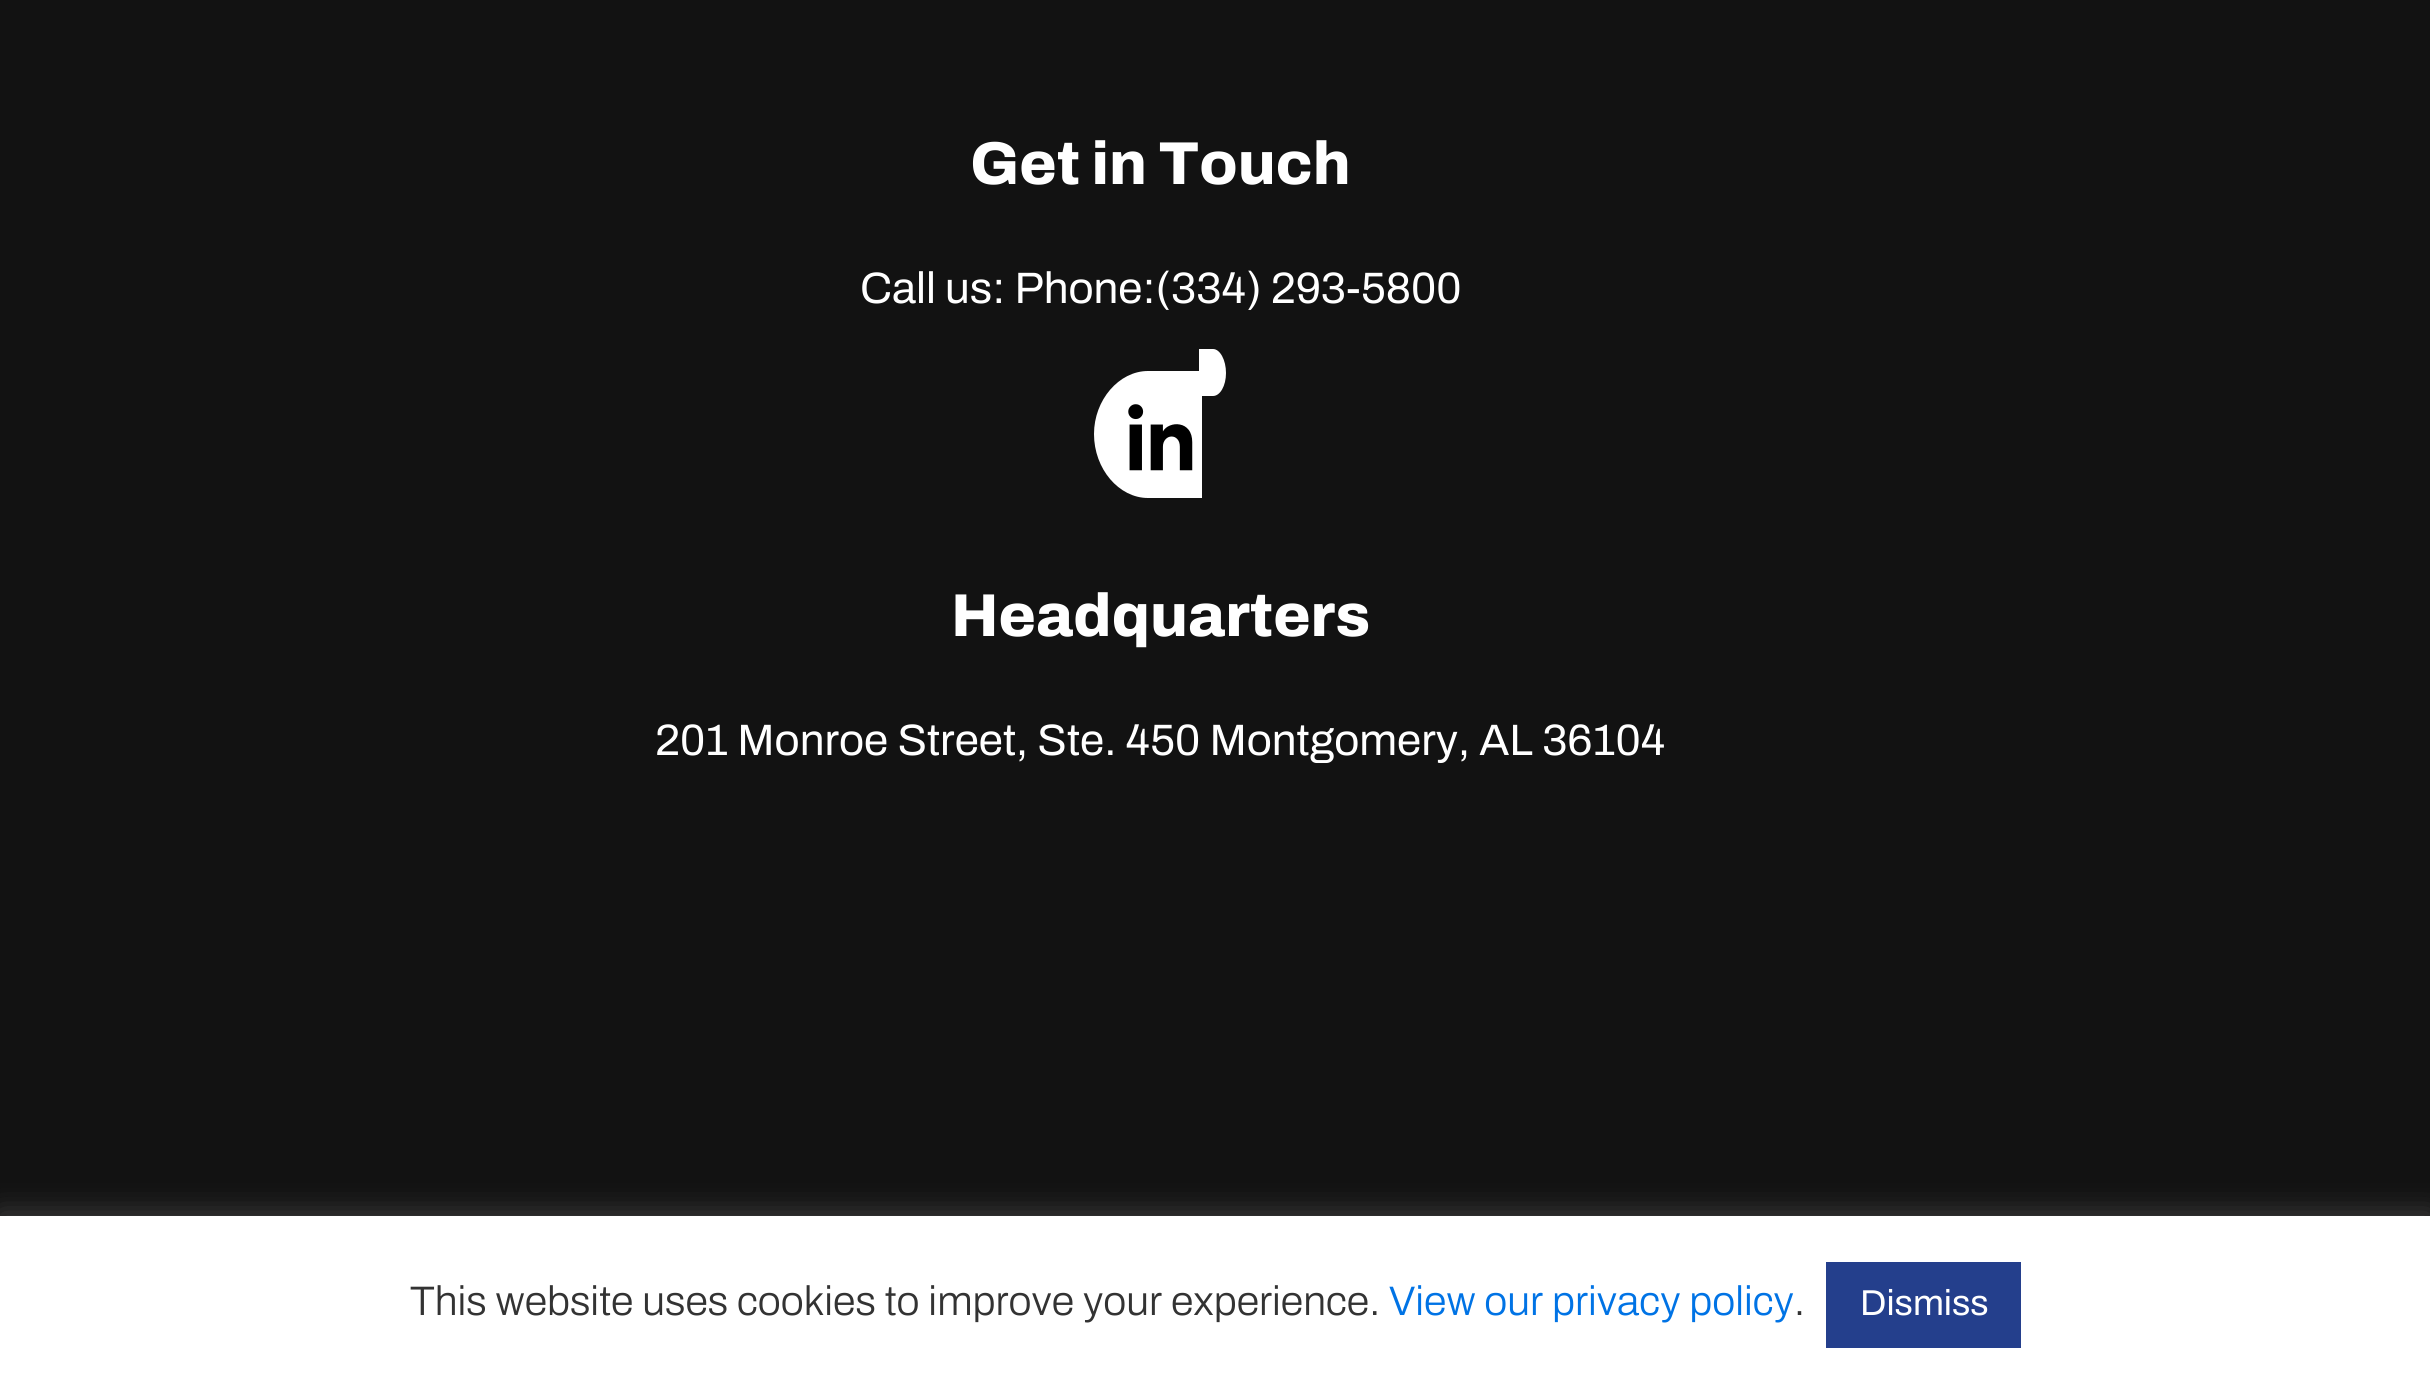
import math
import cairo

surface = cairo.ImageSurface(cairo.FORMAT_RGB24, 2430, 1380)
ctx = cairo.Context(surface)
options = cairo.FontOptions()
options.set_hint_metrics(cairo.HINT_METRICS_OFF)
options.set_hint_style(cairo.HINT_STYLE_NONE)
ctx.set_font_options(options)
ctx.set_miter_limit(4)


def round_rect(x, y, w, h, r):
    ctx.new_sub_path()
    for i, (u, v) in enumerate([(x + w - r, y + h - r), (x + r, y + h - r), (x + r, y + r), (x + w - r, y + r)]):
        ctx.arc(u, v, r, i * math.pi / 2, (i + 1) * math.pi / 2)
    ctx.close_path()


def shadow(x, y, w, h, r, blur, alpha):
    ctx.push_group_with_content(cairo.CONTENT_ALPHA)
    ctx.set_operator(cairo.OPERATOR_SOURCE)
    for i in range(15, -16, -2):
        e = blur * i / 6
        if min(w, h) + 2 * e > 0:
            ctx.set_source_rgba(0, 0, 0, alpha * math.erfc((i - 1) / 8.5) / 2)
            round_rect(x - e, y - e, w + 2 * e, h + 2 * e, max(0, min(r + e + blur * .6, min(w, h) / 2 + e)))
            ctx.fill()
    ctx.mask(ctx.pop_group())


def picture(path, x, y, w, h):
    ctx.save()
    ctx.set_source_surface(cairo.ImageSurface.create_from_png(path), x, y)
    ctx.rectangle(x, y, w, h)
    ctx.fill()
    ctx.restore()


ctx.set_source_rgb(0.071, 0.071, 0.071)
ctx.paint()
ctx.select_font_face("Archivo ExtraBold")
ctx.set_font_size(60.5)
ctx.set_source_rgb(1, 1, 1)
ctx.move_to(970, 184)
ctx.show_text("Get in Touch")
ctx.select_font_face("Archivo")
ctx.set_font_size(44)
ctx.move_to(860, 303)
ctx.show_text("Call us: Phone:(334) 293-5800")
ctx.new_path()
ctx.move_to(1148, 371)
ctx.line_to(1202, 371)
ctx.line_to(1202, 498)
ctx.line_to(1148, 498)
ctx.curve_to(1119, 498, 1094, 469, 1094, 434)
ctx.curve_to(1094, 400, 1119, 371, 1148, 371)
ctx.close_path()
ctx.fill()
ctx.new_path()
ctx.move_to(1199, 349)
ctx.line_to(1213, 349)
ctx.curve_to(1220, 349, 1226, 360, 1226, 373)
ctx.curve_to(1226, 386, 1220, 396, 1213, 396)
ctx.line_to(1199, 396)
ctx.close_path()
ctx.fill()
picture("img1.png", 1128, 404, 65, 67)
ctx.select_font_face("Archivo ExtraBold")
ctx.set_font_size(60.5)
ctx.move_to(951, 636)
ctx.show_text("Headquarters")
ctx.select_font_face("Archivo")
ctx.set_font_size(44)
ctx.move_to(655, 755)
ctx.show_text("201 Monroe Street, Ste. 450 Montgomery, AL 36104")
ctx.set_source_rgb(0.675, 0.671, 0.671)
shadow(0, 1213, 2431, 165, 0, 14, 0.3)
ctx.set_source_rgb(1, 1, 1)
ctx.rectangle(0, 1216, 2430, 164)
ctx.fill()
ctx.select_font_face("Archivo Light")
ctx.set_font_size(41.25)
ctx.set_source_rgb(0.2, 0.2, 0.2)
ctx.move_to(410, 1315)
ctx.show_text("This website uses cookies to improve your experience.")
ctx.set_source_rgb(0, 0.451, 0.898)
ctx.move_to(1389, 1315)
ctx.show_text("View our privacy policy")
ctx.set_source_rgb(0.2, 0.2, 0.2)
ctx.move_to(1794, 1315)
ctx.show_text(".")
ctx.set_source_rgb(0.141, 0.247, 0.549)
ctx.rectangle(1826, 1262, 195, 86)
ctx.fill()
ctx.select_font_face("Archivo")
ctx.set_font_size(36)
ctx.set_source_rgb(1, 1, 1)
ctx.move_to(1860, 1315)
ctx.show_text("Dismiss")
surface.write_to_png("page.png")
